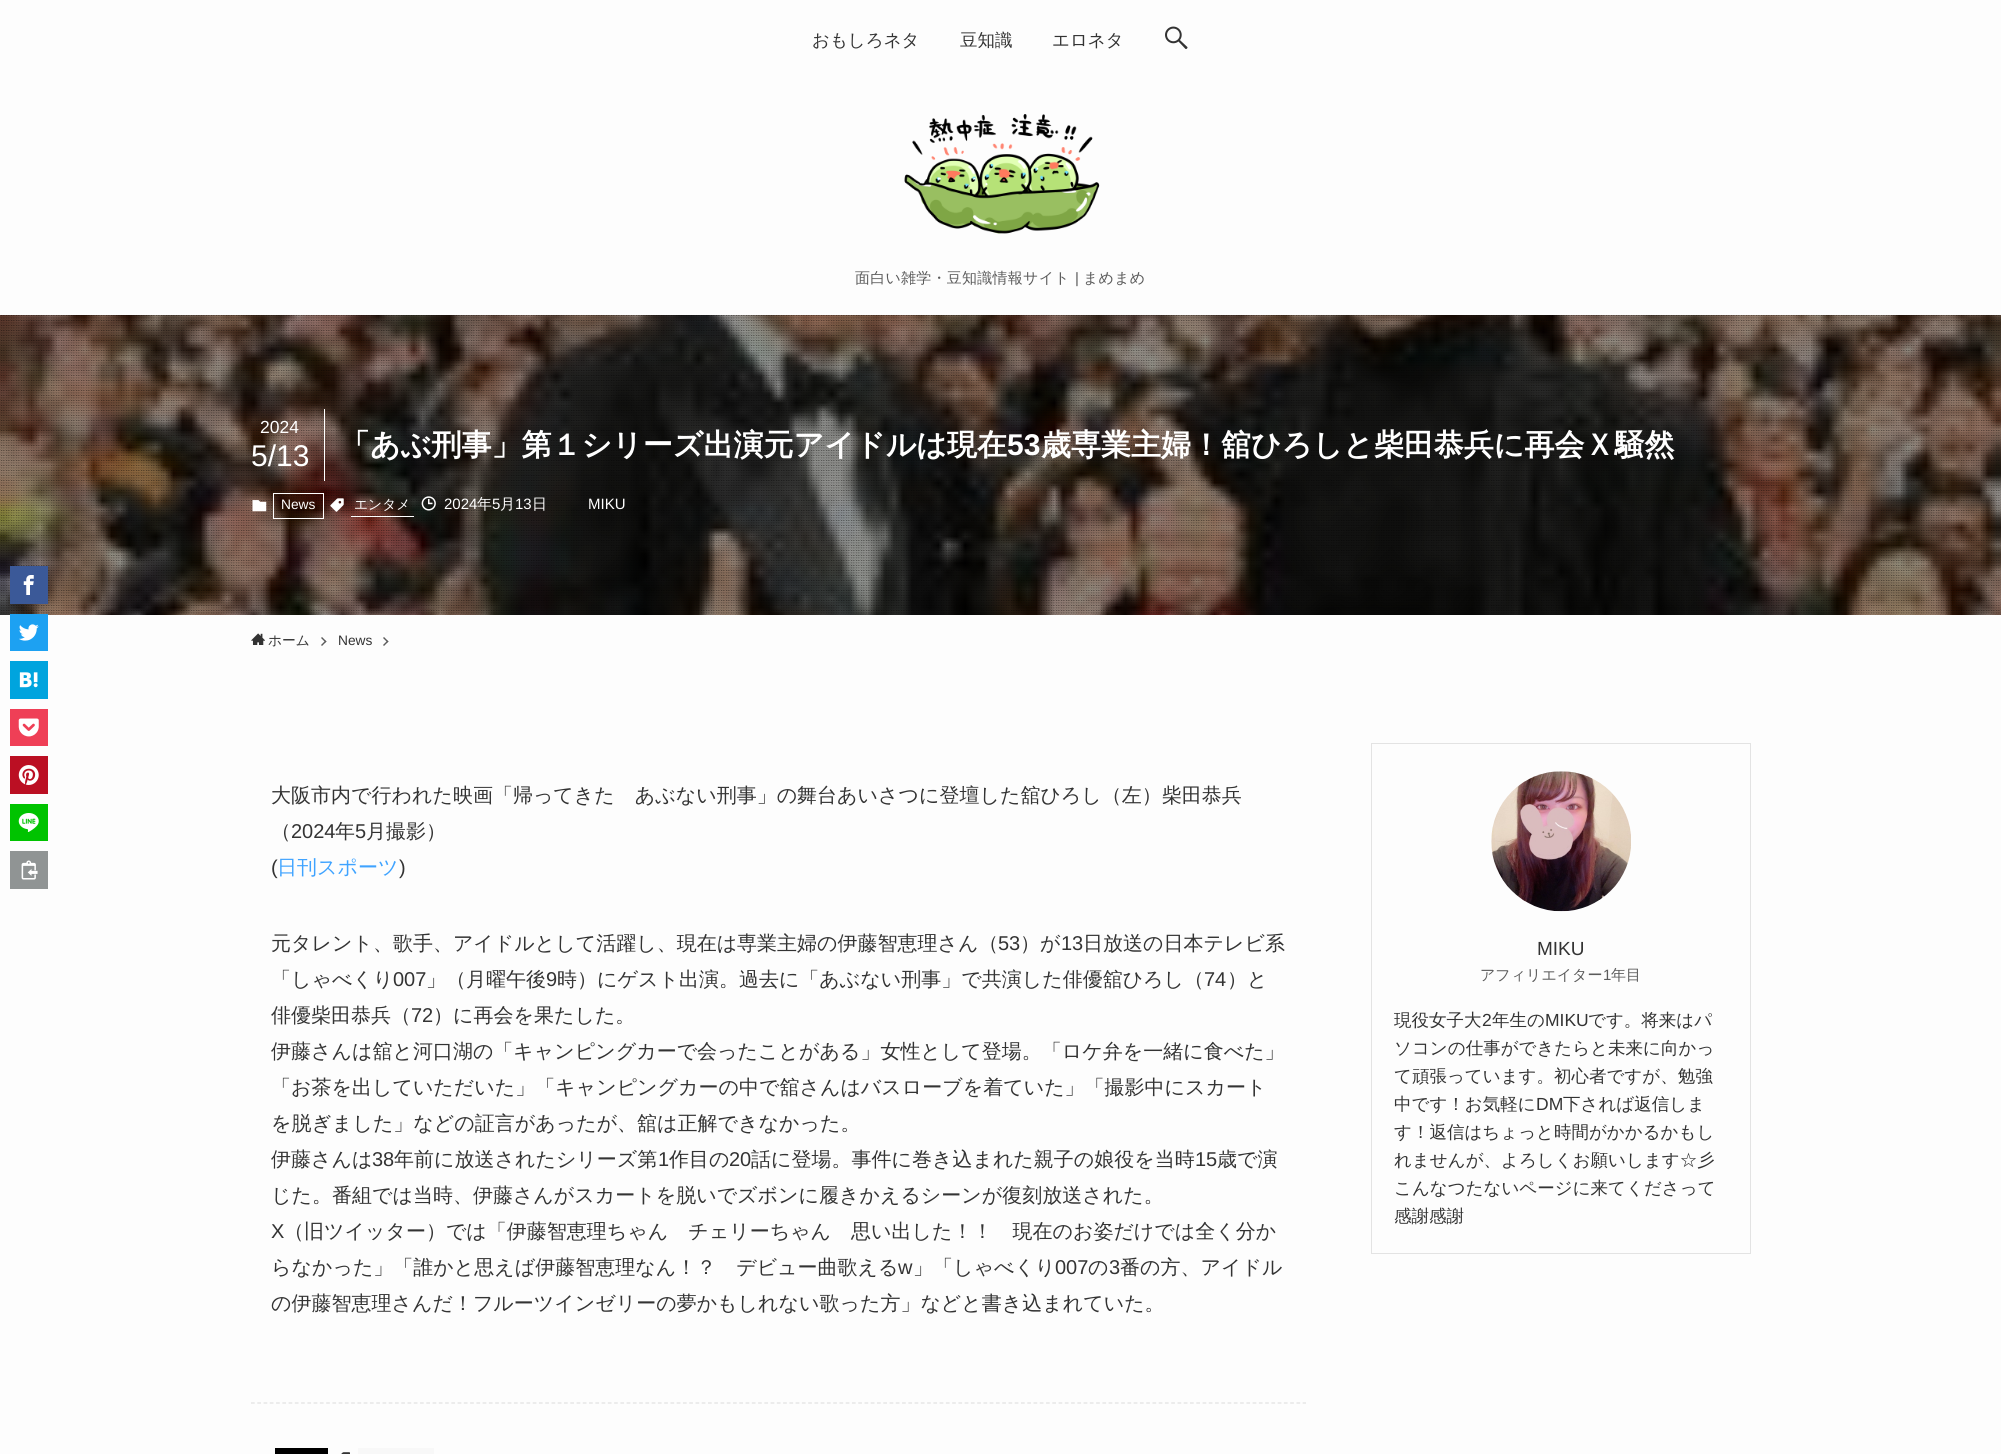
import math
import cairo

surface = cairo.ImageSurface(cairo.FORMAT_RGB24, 2001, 1454)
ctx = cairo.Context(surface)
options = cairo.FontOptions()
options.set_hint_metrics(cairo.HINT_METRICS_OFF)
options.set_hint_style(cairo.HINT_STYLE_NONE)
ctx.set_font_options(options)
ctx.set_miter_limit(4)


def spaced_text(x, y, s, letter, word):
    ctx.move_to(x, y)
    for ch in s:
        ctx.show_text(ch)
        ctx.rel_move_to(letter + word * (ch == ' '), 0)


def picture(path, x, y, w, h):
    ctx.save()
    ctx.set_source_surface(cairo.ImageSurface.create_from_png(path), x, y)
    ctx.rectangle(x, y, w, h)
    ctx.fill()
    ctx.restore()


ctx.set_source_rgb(0.992, 0.992, 0.992)
ctx.paint()
ctx.select_font_face("WenQuanYi Zen Hei Medium")
ctx.set_font_size(17.5)
ctx.set_source_rgb(0.2, 0.2, 0.2)
ctx.move_to(812, 46)
ctx.show_text("おもしろネタ")
ctx.move_to(960, 46)
ctx.show_text("豆知識")
ctx.move_to(1052, 46)
ctx.show_text("エロネタ")
picture("img1.png", 1165, 26, 23, 23)
picture("img2.png", 904, 114, 196, 120)
ctx.set_font_size(15)
ctx.set_source_rgb(0.357, 0.357, 0.357)
spaced_text(855, 283, "面白い雑学・豆知識情報サイト", 0.25, 0)
ctx.select_font_face("Liberation Sans")
spaced_text(1075, 283, "|", 0.25, 0)
ctx.select_font_face("WenQuanYi Zen Hei Medium")
spaced_text(1083, 283, "まめまめ", 0.25, 0)
picture("img3.png", 0, 315, 2001, 300)
picture("img4.png", 0, 315, 2001, 300)
ctx.set_source_rgb(1, 1, 1)
ctx.rectangle(324, 409, 1, 72)
ctx.fill()
ctx.select_font_face("Liberation Sans")
ctx.set_font_size(17.5)
ctx.move_to(260, 433)
ctx.show_text("2024")
ctx.set_font_size(30)
ctx.move_to(251, 466)
ctx.show_text("5/13")
ctx.select_font_face("WenQuanYi Zen Hei", cairo.FONT_SLANT_NORMAL, cairo.FONT_WEIGHT_BOLD)
ctx.move_to(340, 455)
ctx.show_text("「あぶ刑事」第１シリーズ出演元アイドルは現在")
ctx.select_font_face("Liberation Sans", cairo.FONT_SLANT_NORMAL, cairo.FONT_WEIGHT_BOLD)
ctx.move_to(1007, 455)
ctx.show_text("53")
ctx.select_font_face("WenQuanYi Zen Hei", cairo.FONT_SLANT_NORMAL, cairo.FONT_WEIGHT_BOLD)
ctx.move_to(1041, 455)
ctx.show_text("歳専業主婦！舘ひろしと柴田恭兵に再会Ｘ騒然")
picture("img5.png", 252, 500, 15, 12)
ctx.rectangle(273.5, 493.5, 50, 25)
ctx.set_line_width(1)
ctx.stroke()
ctx.select_font_face("Liberation Sans")
ctx.set_font_size(13.75)
ctx.move_to(281, 509)
ctx.show_text("News")
picture("img6.png", 330, 498, 14, 14)
ctx.rectangle(351, 516, 63, 1)
ctx.fill()
ctx.select_font_face("WenQuanYi Zen Hei Medium")
ctx.move_to(354, 509)
ctx.show_text("エンタメ")
picture("img7.png", 421, 496, 15, 15)
ctx.select_font_face("Liberation Sans")
ctx.set_font_size(15)
ctx.move_to(444, 509)
ctx.show_text("2024")
ctx.select_font_face("WenQuanYi Zen Hei Medium")
ctx.move_to(477, 509)
ctx.show_text("年")
ctx.select_font_face("Liberation Sans")
ctx.move_to(492, 509)
ctx.show_text("5")
ctx.select_font_face("WenQuanYi Zen Hei Medium")
ctx.move_to(500, 509)
ctx.show_text("月")
ctx.select_font_face("Liberation Sans")
ctx.move_to(515, 509)
ctx.show_text("13")
ctx.select_font_face("WenQuanYi Zen Hei Medium")
ctx.move_to(532, 509)
ctx.show_text("日")
ctx.select_font_face("Liberation Sans")
ctx.move_to(588, 509)
ctx.show_text("MIKU")
picture("img8.png", 251, 633, 14, 12)
ctx.select_font_face("WenQuanYi Zen Hei Medium")
ctx.set_font_size(13.75)
ctx.set_source_rgb(0.2, 0.2, 0.2)
ctx.move_to(268, 645)
ctx.show_text("ホーム")
ctx.set_source_rgb(0.357, 0.357, 0.357)
ctx.new_path()
ctx.move_to(322, 637)
ctx.line_to(326.5, 641.5)
ctx.line_to(325.5, 642.5)
ctx.line_to(321, 638)
ctx.close_path()
ctx.fill()
ctx.new_path()
ctx.move_to(325.5, 640.5)
ctx.line_to(326.5, 641.5)
ctx.line_to(322, 646)
ctx.line_to(321, 645)
ctx.close_path()
ctx.fill()
ctx.select_font_face("Liberation Sans")
ctx.set_source_rgb(0.2, 0.2, 0.2)
ctx.move_to(338, 645)
ctx.show_text("News")
ctx.set_source_rgb(0.357, 0.357, 0.357)
ctx.new_path()
ctx.move_to(384, 637)
ctx.line_to(388.5, 641.5)
ctx.line_to(387.5, 642.5)
ctx.line_to(383, 638)
ctx.close_path()
ctx.fill()
ctx.new_path()
ctx.move_to(387.5, 640.5)
ctx.line_to(388.5, 641.5)
ctx.line_to(384, 646)
ctx.line_to(383, 645)
ctx.close_path()
ctx.fill()
ctx.set_source_rgb(0.231, 0.349, 0.596)
ctx.rectangle(10, 566, 38, 38)
ctx.fill()
picture("img9.png", 23, 575, 11, 20)
ctx.set_source_rgb(0.114, 0.631, 0.949)
ctx.rectangle(10, 614, 38, 37)
ctx.fill()
picture("img10.png", 19, 624, 20, 17)
ctx.set_source_rgb(0, 0.643, 0.871)
ctx.rectangle(10, 661, 38, 38)
ctx.fill()
picture("img11.png", 19, 672, 19, 16)
ctx.set_source_rgb(0.937, 0.247, 0.337)
ctx.rectangle(10, 709, 38, 37)
ctx.fill()
picture("img12.png", 18, 718, 21, 19)
ctx.set_source_rgb(0.733, 0.059, 0.137)
ctx.rectangle(10, 756, 38, 38)
ctx.fill()
picture("img13.png", 18, 765, 21, 20)
ctx.set_source_rgb(0, 0.765, 0)
ctx.rectangle(10, 804, 38, 37)
ctx.fill()
picture("img14.png", 18, 813, 21, 19)
ctx.set_source_rgb(0.565, 0.58, 0.58)
ctx.rectangle(10, 851, 38, 38)
ctx.fill()
picture("img15.png", 21, 860, 17, 20)
ctx.select_font_face("WenQuanYi Zen Hei Medium")
ctx.set_font_size(20)
ctx.set_source_rgb(0.2, 0.2, 0.2)
ctx.move_to(271, 802)
ctx.show_text("大阪市内で行われた映画「帰ってきた　あぶない刑事」の舞台あいさつに登壇した舘ひろし（左）柴田恭兵")
ctx.move_to(271, 838)
ctx.show_text("（")
ctx.select_font_face("Liberation Sans")
ctx.move_to(291, 838)
ctx.show_text("2024")
ctx.select_font_face("WenQuanYi Zen Hei Medium")
ctx.move_to(335, 838)
ctx.show_text("年")
ctx.select_font_face("Liberation Sans")
ctx.move_to(355, 838)
ctx.show_text("5")
ctx.select_font_face("WenQuanYi Zen Hei Medium")
ctx.move_to(366, 838)
ctx.show_text("月撮影）")
ctx.select_font_face("Liberation Sans")
ctx.move_to(271, 874)
ctx.show_text("(")
ctx.select_font_face("WenQuanYi Zen Hei Medium")
ctx.set_source_rgb(0.247, 0.639, 1)
ctx.move_to(277, 874)
ctx.show_text("日刊スポーツ")
ctx.select_font_face("Liberation Sans")
ctx.set_source_rgb(0.2, 0.2, 0.2)
ctx.move_to(399, 874)
ctx.show_text(")")
ctx.select_font_face("WenQuanYi Zen Hei Medium")
ctx.move_to(271, 950)
ctx.show_text("元タレント、歌手、アイドルとして活躍し、現在は専業主婦の伊藤智恵理さん（")
ctx.select_font_face("Liberation Sans")
ctx.move_to(998, 950)
ctx.show_text("53")
ctx.select_font_face("WenQuanYi Zen Hei Medium")
ctx.move_to(1020, 950)
ctx.show_text("）が")
ctx.select_font_face("Liberation Sans")
ctx.move_to(1061, 950)
ctx.show_text("13")
ctx.select_font_face("WenQuanYi Zen Hei Medium")
ctx.move_to(1083, 950)
ctx.show_text("日放送の日本テレビ系")
ctx.move_to(271, 986)
ctx.show_text("「しゃべくり")
ctx.select_font_face("Liberation Sans")
ctx.move_to(393, 986)
ctx.show_text("007")
ctx.select_font_face("WenQuanYi Zen Hei Medium")
ctx.move_to(426, 986)
ctx.show_text("」（月曜午後")
ctx.select_font_face("Liberation Sans")
ctx.move_to(546, 986)
ctx.show_text("9")
ctx.select_font_face("WenQuanYi Zen Hei Medium")
ctx.move_to(557, 986)
ctx.show_text("時）にゲスト出演。過去に「あぶない刑事」で共演した俳優舘ひろし（")
ctx.select_font_face("Liberation Sans")
ctx.move_to(1204, 986)
ctx.show_text("74")
ctx.select_font_face("WenQuanYi Zen Hei Medium")
ctx.move_to(1227, 986)
ctx.show_text("）と")
ctx.move_to(271, 1022)
ctx.show_text("俳優柴田恭兵（")
ctx.select_font_face("Liberation Sans")
ctx.move_to(411, 1022)
ctx.show_text("72")
ctx.select_font_face("WenQuanYi Zen Hei Medium")
ctx.move_to(433, 1022)
ctx.show_text("）に再会を果たした。")
ctx.move_to(271, 1058)
ctx.show_text("伊藤さんは舘と河口湖の「キャンピングカーで会ったことがある」女性として登場。「ロケ弁を一緒に食べた」")
ctx.move_to(271, 1094)
ctx.show_text("「お茶を出していただいた」「キャンピングカーの中で舘さんはバスローブを着ていた」「撮影中にスカート")
ctx.move_to(271, 1130)
ctx.show_text("を脱ぎました」などの証言があったが、舘は正解できなかった。")
ctx.move_to(271, 1166)
ctx.show_text("伊藤さんは")
ctx.select_font_face("Liberation Sans")
ctx.move_to(372, 1166)
ctx.show_text("38")
ctx.select_font_face("WenQuanYi Zen Hei Medium")
ctx.move_to(394, 1166)
ctx.show_text("年前に放送されたシリーズ第")
ctx.select_font_face("Liberation Sans")
ctx.move_to(658, 1166)
ctx.show_text("1")
ctx.select_font_face("WenQuanYi Zen Hei Medium")
ctx.move_to(669, 1166)
ctx.show_text("作目の")
ctx.select_font_face("Liberation Sans")
ctx.move_to(729, 1166)
ctx.show_text("20")
ctx.select_font_face("WenQuanYi Zen Hei Medium")
ctx.move_to(751, 1166)
ctx.show_text("話に登場。事件に巻き込まれた親子の娘役を当時")
ctx.select_font_face("Liberation Sans")
ctx.move_to(1195, 1166)
ctx.show_text("15")
ctx.select_font_face("WenQuanYi Zen Hei Medium")
ctx.move_to(1217, 1166)
ctx.show_text("歳で演")
ctx.move_to(271, 1202)
ctx.show_text("じた。番組では当時、伊藤さんがスカートを脱いでズボンに履きかえるシーンが復刻放送された。")
ctx.select_font_face("Liberation Sans")
ctx.move_to(271, 1238)
ctx.show_text("X")
ctx.select_font_face("WenQuanYi Zen Hei Medium")
ctx.move_to(284, 1238)
ctx.show_text("（旧ツイッター）では「伊藤智恵理ちゃん　チェリーちゃん　思い出した！！　現在のお姿だけでは全く分か")
ctx.move_to(271, 1274)
ctx.show_text("らなかった」「誰かと思えば伊藤智恵理なん！？　デビュー曲歌える")
ctx.select_font_face("Liberation Sans")
ctx.move_to(898, 1274)
ctx.show_text("w")
ctx.select_font_face("WenQuanYi Zen Hei Medium")
ctx.move_to(913, 1274)
ctx.show_text("」「しゃべくり")
ctx.select_font_face("Liberation Sans")
ctx.move_to(1055, 1274)
ctx.show_text("007")
ctx.select_font_face("WenQuanYi Zen Hei Medium")
ctx.move_to(1088, 1274)
ctx.show_text("の")
ctx.select_font_face("Liberation Sans")
ctx.move_to(1109, 1274)
ctx.show_text("3")
ctx.select_font_face("WenQuanYi Zen Hei Medium")
ctx.move_to(1120, 1274)
ctx.show_text("番の方、アイドル")
ctx.move_to(271, 1310)
ctx.show_text("の伊藤智恵理さんだ！フルーツインゼリーの夢かもしれない歌った方」などと書き込まれていた。")
ctx.new_path()
ctx.move_to(251, 1403)
ctx.line_to(1306, 1403)
ctx.set_source_rgb(0.886, 0.886, 0.886)
ctx.set_line_width(1.2)
ctx.set_dash([3.75, 2.51])
ctx.stroke()
ctx.set_source_rgb(0, 0, 0)
ctx.rectangle(275, 1448, 53, 6)
ctx.fill()
picture("img16.png", 341, 1452, 9, 2)
ctx.set_source_rgb(0.969, 0.969, 0.969)
ctx.rectangle(358, 1448, 76, 6)
ctx.fill()
ctx.rectangle(1371.5, 743.5, 379, 510)
ctx.set_source_rgb(0.89, 0.89, 0.89)
ctx.set_line_width(1)
ctx.set_dash([])
ctx.stroke()
picture("img17.png", 1491, 771, 140, 141)
ctx.select_font_face("Liberation Sans")
ctx.set_font_size(19)
ctx.set_source_rgb(0.2, 0.2, 0.2)
ctx.move_to(1537, 955)
ctx.show_text("MIKU")
ctx.select_font_face("WenQuanYi Zen Hei Medium")
ctx.set_font_size(15)
ctx.set_source_rgb(0.357, 0.357, 0.357)
ctx.move_to(1480, 980)
ctx.show_text("アフィリエイター")
ctx.select_font_face("Liberation Sans")
ctx.move_to(1603, 980)
ctx.show_text("1")
ctx.select_font_face("WenQuanYi Zen Hei Medium")
ctx.move_to(1611, 980)
ctx.show_text("年目")
ctx.set_font_size(17.5)
ctx.set_source_rgb(0.2, 0.2, 0.2)
ctx.move_to(1394, 1026)
ctx.show_text("現役女子大")
ctx.select_font_face("Liberation Sans")
ctx.move_to(1482, 1026)
ctx.show_text("2")
ctx.select_font_face("WenQuanYi Zen Hei Medium")
ctx.move_to(1492, 1026)
ctx.show_text("年生の")
ctx.select_font_face("Liberation Sans")
ctx.move_to(1545, 1026)
ctx.show_text("MIKU")
ctx.select_font_face("WenQuanYi Zen Hei Medium")
ctx.move_to(1588, 1026)
ctx.show_text("です。将来はパ")
ctx.move_to(1394, 1054)
ctx.show_text("ソコンの仕事ができたらと未来に向かっ")
ctx.move_to(1394, 1082)
ctx.show_text("て頑張っています。初心者ですが、勉強")
ctx.move_to(1394, 1110)
ctx.show_text("中です！お気軽に")
ctx.select_font_face("Liberation Sans")
ctx.move_to(1536, 1110)
ctx.show_text("DM")
ctx.select_font_face("WenQuanYi Zen Hei Medium")
ctx.move_to(1563, 1110)
ctx.show_text("下されば返信しま")
ctx.move_to(1394, 1138)
ctx.show_text("す！返信はちょっと時間がかかるかもし")
ctx.move_to(1394, 1166)
ctx.show_text("れませんが、よろしくお願いします☆彡")
ctx.move_to(1394, 1194)
ctx.show_text("こんなつたないページに来てくださって")
ctx.move_to(1394, 1222)
ctx.show_text("感謝感謝")
surface.write_to_png("page.png")
